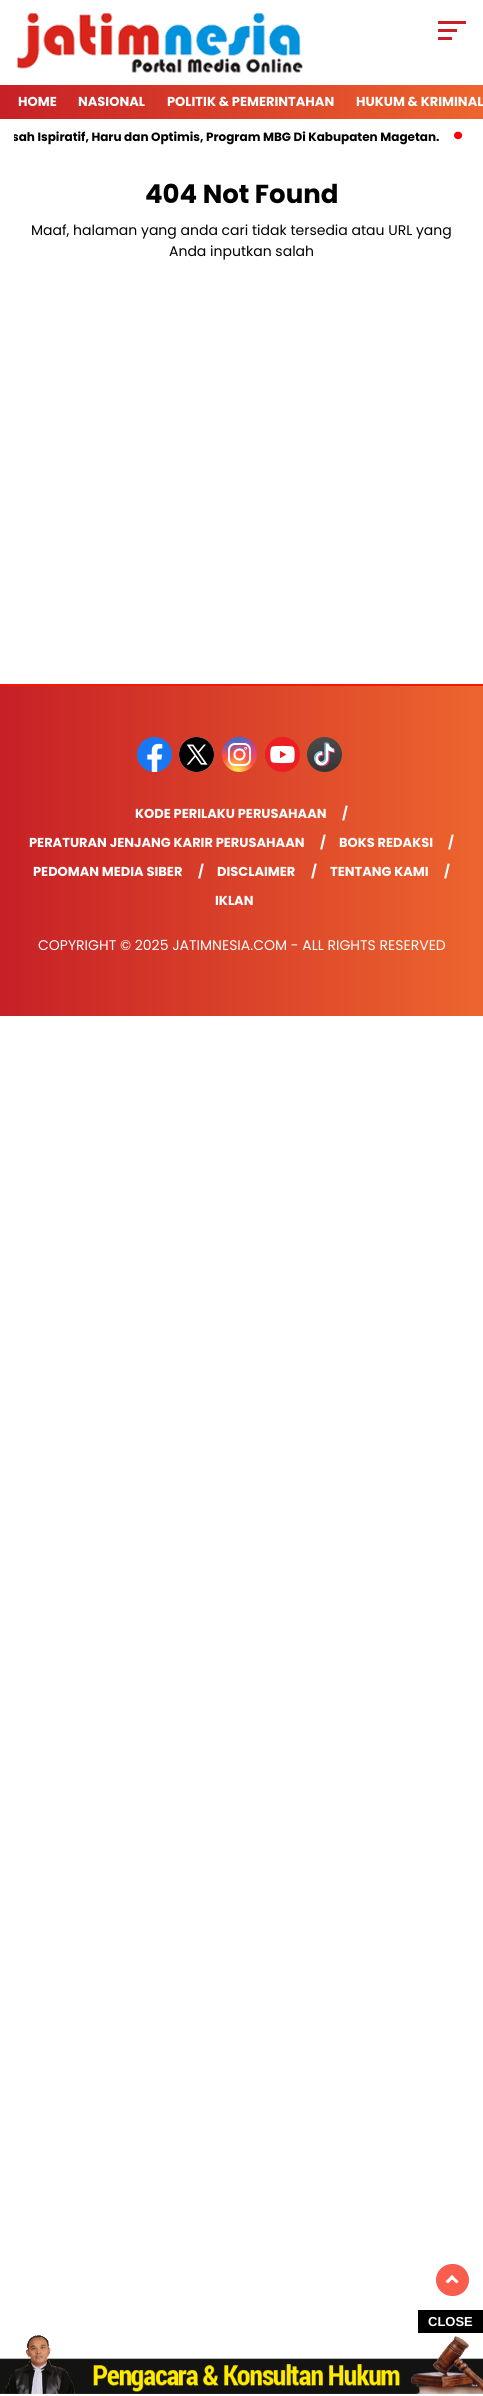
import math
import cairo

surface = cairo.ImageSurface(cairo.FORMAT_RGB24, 483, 2396)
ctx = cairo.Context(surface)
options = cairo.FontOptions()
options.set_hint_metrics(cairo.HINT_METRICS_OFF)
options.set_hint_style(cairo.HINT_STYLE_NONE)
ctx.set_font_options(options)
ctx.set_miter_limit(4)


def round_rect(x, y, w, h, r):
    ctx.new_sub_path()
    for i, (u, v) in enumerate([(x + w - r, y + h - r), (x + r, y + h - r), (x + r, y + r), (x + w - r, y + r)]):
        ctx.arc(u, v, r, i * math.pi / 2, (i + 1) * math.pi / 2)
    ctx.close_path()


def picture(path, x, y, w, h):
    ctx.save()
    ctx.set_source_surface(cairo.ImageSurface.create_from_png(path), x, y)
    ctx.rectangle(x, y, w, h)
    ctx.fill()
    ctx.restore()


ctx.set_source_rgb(1, 1, 1)
ctx.paint()
picture("img1.png", 17, 13, 286, 60)
ctx.set_source_rgb(0.78, 0.125, 0.149)
ctx.rectangle(438, 21, 28, 3)
ctx.fill()
ctx.rectangle(438, 29, 19, 3)
ctx.fill()
ctx.rectangle(438, 37, 14, 3)
ctx.fill()
gradient = cairo.LinearGradient(0, 102, 483, 102)
gradient.add_color_stop_rgba(0, 0.78, 0.125, 0.149, 1)
gradient.add_color_stop_rgba(1, 0.929, 0.396, 0.18, 1)
ctx.set_source(gradient)
ctx.rectangle(0, 85, 483, 34)
ctx.fill()
ctx.select_font_face("Poppins", cairo.FONT_SLANT_NORMAL, cairo.FONT_WEIGHT_BOLD)
ctx.set_font_size(13)
ctx.set_source_rgb(1, 1, 1)
ctx.move_to(18, 106)
ctx.show_text("HOME")
ctx.move_to(78, 106)
ctx.show_text("NASIONAL")
ctx.move_to(167, 106)
ctx.show_text("POLITIK & PEMERINTAHAN")
ctx.move_to(356, 106)
ctx.show_text("HUKUM & KRIMINAL")
ctx.save()
ctx.rectangle(14, 119, 455, 35)
ctx.clip()
ctx.set_font_size(12)
ctx.set_source_rgb(0, 0, 0)
ctx.move_to(12, 141)
ctx.show_text("sah Ispiratif, Haru dan Optimis, Program MBG Di Kabupaten Magetan.")
ctx.restore()
ctx.set_font_size(40)
ctx.set_source_rgb(1, 0, 0)
ctx.move_to(452, 148)
ctx.show_text("·")
ctx.set_font_size(26)
ctx.set_source_rgb(0, 0, 0)
ctx.move_to(145, 203)
ctx.show_text("404 Not Found")
ctx.select_font_face("Poppins")
ctx.set_font_size(14)
ctx.move_to(31, 235)
ctx.show_text("Maaf, halaman yang anda cari tidak tersedia atau URL yang")
ctx.move_to(169, 256)
ctx.show_text("Anda inputkan salah")
gradient = cairo.LinearGradient(0, 851, 483, 851)
gradient.add_color_stop_rgba(0, 0.78, 0.125, 0.149, 1)
gradient.add_color_stop_rgba(1, 0.929, 0.396, 0.18, 1)
ctx.set_source(gradient)
ctx.rectangle(0, 686, 483, 330)
ctx.fill()
ctx.set_source_rgb(0.961, 0.09, 0)
ctx.rectangle(0, 684, 483, 2)
ctx.fill()
picture("img2.png", 137, 737, 35, 35)
picture("img3.png", 179, 737, 35, 35)
gradient = cairo.RadialGradient(236, 772, 0, 236, 772, 35)
gradient.add_color_stop_rgba(0.1, 1, 0.867, 0.333, 1)
gradient.add_color_stop_rgba(0.5, 1, 0.329, 0.243, 1)
gradient.add_color_stop_rgba(1, 0.784, 0.216, 0.671, 1)
ctx.set_source(gradient)
ctx.arc(239.5, 754.5, 17.5, 0, 2 * math.pi)
ctx.fill()
gradient = cairo.LinearGradient(222, 737, 229, 772)
gradient.add_color_stop_rgba(0.1, 0.216, 0.443, 0.784, 1)
gradient.add_color_stop_rgba(0.5, 0.216, 0.443, 0.784, 0)
ctx.set_source(gradient)
ctx.arc(239.5, 754.5, 17.5, 0, 2 * math.pi)
ctx.fill()
round_rect(229, 744, 21, 21, 6)
ctx.set_source_rgb(1, 1, 1)
ctx.stroke()
ctx.arc(239.5, 754.5, 5, 0, 2 * math.pi)
ctx.set_line_width(2.1)
ctx.stroke()
ctx.arc(245.7, 748.3, 0.4, 0, 2 * math.pi)
ctx.stroke()
picture("img4.png", 265, 737, 35, 35)
picture("img5.png", 307, 737, 35, 35)
ctx.select_font_face("Poppins", cairo.FONT_SLANT_NORMAL, cairo.FONT_WEIGHT_BOLD)
ctx.set_font_size(13)
ctx.move_to(135, 818)
ctx.show_text("KODE PERILAKU PERUSAHAAN")
ctx.move_to(342, 818)
ctx.show_text("/")
ctx.move_to(29, 847)
ctx.show_text("PERATURAN JENJANG KARIR PERUSAHAAN")
ctx.move_to(320, 847)
ctx.show_text("/")
ctx.move_to(339, 847)
ctx.show_text("BOKS REDAKSI")
ctx.move_to(448, 847)
ctx.show_text("/")
ctx.move_to(33, 876)
ctx.show_text("PEDOMAN MEDIA SIBER")
ctx.move_to(198, 876)
ctx.show_text("/")
ctx.move_to(217, 876)
ctx.show_text("DISCLAIMER")
ctx.move_to(311, 876)
ctx.show_text("/")
ctx.move_to(330, 876)
ctx.show_text("TENTANG KAMI")
ctx.move_to(444, 876)
ctx.show_text("/")
ctx.move_to(215, 905)
ctx.show_text("IKLAN")
ctx.select_font_face("Poppins")
ctx.set_font_size(14)
ctx.move_to(38, 950)
ctx.show_text("COPYRIGHT © 2025 JATIMNESIA.COM - ALL RIGHTS RESERVED")
ctx.set_source_rgb(0.973, 0.365, 0.302)
round_rect(436, 2264, 33, 32, 16)
ctx.fill()
ctx.set_source_rgb(1, 1, 1)
ctx.new_path()
ctx.move_to(448, 2283.5)
ctx.line_to(445.5, 2281.5)
ctx.line_to(452, 2275)
ctx.line_to(454, 2277.5)
ctx.close_path()
ctx.fill()
ctx.new_path()
ctx.move_to(456.5, 2283.5)
ctx.line_to(450, 2277.5)
ctx.line_to(452, 2275)
ctx.line_to(458.5, 2281.5)
ctx.close_path()
ctx.fill()
ctx.set_source_rgb(0, 0, 0)
ctx.rectangle(418, 2310, 65, 23)
ctx.fill()
ctx.select_font_face("Liberation Sans", cairo.FONT_SLANT_NORMAL, cairo.FONT_WEIGHT_BOLD)
ctx.set_font_size(13)
ctx.set_source_rgb(1, 1, 1)
ctx.move_to(428, 2326)
ctx.show_text("CLOSE")
picture("img6.png", 0, 2335, 483, 59)
surface.write_to_png("page.png")
